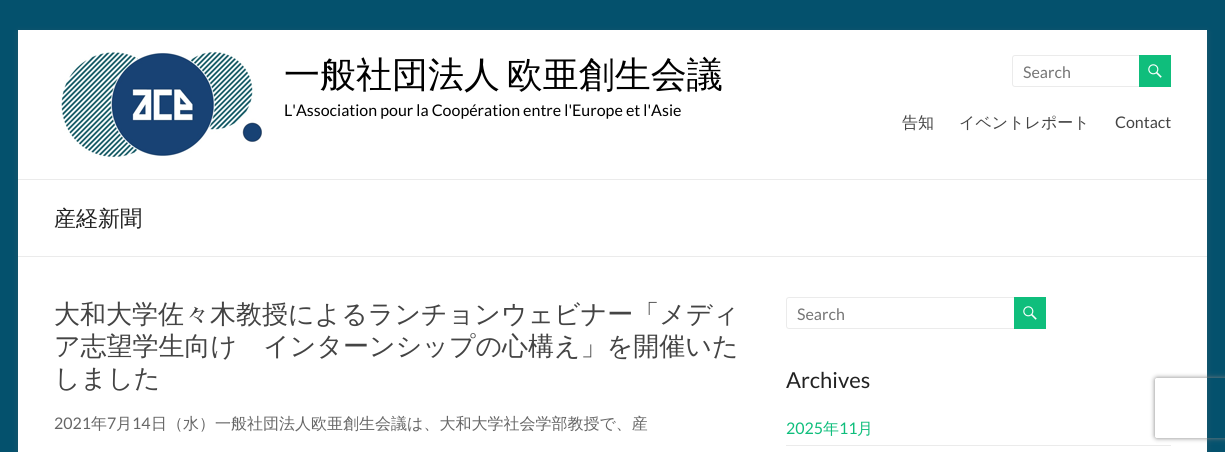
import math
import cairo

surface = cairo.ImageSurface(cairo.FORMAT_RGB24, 1225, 452)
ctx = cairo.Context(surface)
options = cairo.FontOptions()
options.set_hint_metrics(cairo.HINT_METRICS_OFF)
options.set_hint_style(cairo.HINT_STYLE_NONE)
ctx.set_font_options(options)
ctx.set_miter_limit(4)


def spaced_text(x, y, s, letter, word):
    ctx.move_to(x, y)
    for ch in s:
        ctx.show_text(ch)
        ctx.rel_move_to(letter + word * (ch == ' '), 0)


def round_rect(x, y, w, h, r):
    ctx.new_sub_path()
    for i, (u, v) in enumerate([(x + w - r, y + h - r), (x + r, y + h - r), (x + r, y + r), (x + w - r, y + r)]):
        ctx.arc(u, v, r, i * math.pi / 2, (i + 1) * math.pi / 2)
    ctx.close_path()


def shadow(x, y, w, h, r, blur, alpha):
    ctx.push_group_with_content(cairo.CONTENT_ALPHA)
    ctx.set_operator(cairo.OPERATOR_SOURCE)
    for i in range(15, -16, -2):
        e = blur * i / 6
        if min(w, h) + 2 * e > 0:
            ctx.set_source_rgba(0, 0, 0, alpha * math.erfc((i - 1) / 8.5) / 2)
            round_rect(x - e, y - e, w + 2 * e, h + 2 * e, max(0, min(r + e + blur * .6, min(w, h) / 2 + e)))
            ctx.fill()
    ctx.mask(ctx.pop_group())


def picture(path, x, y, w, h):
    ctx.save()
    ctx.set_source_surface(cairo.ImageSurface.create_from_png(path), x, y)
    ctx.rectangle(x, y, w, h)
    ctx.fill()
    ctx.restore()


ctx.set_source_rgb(0.016, 0.318, 0.427)
ctx.paint()
ctx.set_source_rgb(0.392, 0.392, 0.392)
shadow(18, 32, 1189, 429, 0, 3, 0.3)
ctx.set_source_rgb(1, 1, 1)
ctx.rectangle(18, 30, 1189, 422)
ctx.fill()
ctx.set_source_rgb(0.918, 0.918, 0.918)
ctx.rectangle(18, 179, 1189, 1)
ctx.fill()
picture("img1.png", 61, 52, 201, 106)
ctx.select_font_face("WenQuanYi Zen Hei Medium")
ctx.set_font_size(36)
ctx.set_source_rgb(0, 0, 0)
spaced_text(284, 87, "一般社団法人 欧亜創生会議", 0, -4)
ctx.select_font_face("Lato")
ctx.set_font_size(16)
ctx.move_to(284, 116)
ctx.show_text("L'Association pour la Coopération entre l'Europe et l'Asie")
round_rect(1012.5, 55.5, 129, 31, 2.5)
ctx.set_source_rgb(0.918, 0.918, 0.918)
ctx.set_line_width(1)
ctx.stroke()
ctx.set_source_rgb(0.459, 0.459, 0.459)
ctx.move_to(1023, 78)
ctx.show_text("Search")
ctx.set_source_rgb(0.059, 0.745, 0.486)
ctx.rectangle(1139, 55, 32, 32)
ctx.fill()
picture("img2.png", 1148, 64, 14, 14)
ctx.select_font_face("WenQuanYi Zen Hei Medium")
ctx.set_source_rgb(0.267, 0.267, 0.267)
ctx.move_to(902, 128)
ctx.show_text("告知")
ctx.move_to(959, 128)
ctx.show_text("イベントレポート")
ctx.select_font_face("Lato")
ctx.move_to(1115, 128)
ctx.show_text("Contact")
ctx.set_source_rgb(0.918, 0.918, 0.918)
ctx.rectangle(18, 256, 1189, 1)
ctx.fill()
ctx.select_font_face("WenQuanYi Zen Hei Medium")
ctx.set_font_size(22)
ctx.set_source_rgb(0.133, 0.133, 0.133)
ctx.move_to(54, 226)
ctx.show_text("産経新聞")
ctx.set_font_size(26)
ctx.set_source_rgb(0.267, 0.267, 0.267)
ctx.move_to(54, 323)
ctx.show_text("大和大学佐々木教授によるランチョンウェビナー「メディ")
ctx.move_to(54, 355)
ctx.show_text("ア志望学生向け　インターンシップの心構え」を開催いた")
ctx.move_to(54, 387)
ctx.show_text("しました")
ctx.select_font_face("Lato")
ctx.set_font_size(16)
ctx.set_source_rgb(0.4, 0.4, 0.4)
ctx.move_to(54, 429)
ctx.show_text("2021")
ctx.select_font_face("WenQuanYi Zen Hei Medium")
ctx.move_to(91, 429)
ctx.show_text("年")
ctx.select_font_face("Lato")
ctx.move_to(107, 429)
ctx.show_text("7")
ctx.select_font_face("WenQuanYi Zen Hei Medium")
ctx.move_to(116, 429)
ctx.show_text("月")
ctx.select_font_face("Lato")
ctx.move_to(132, 429)
ctx.show_text("14")
ctx.select_font_face("WenQuanYi Zen Hei Medium")
ctx.move_to(151, 429)
ctx.show_text("日（水）一般社団法人欧亜創生会議は、大和大学社会学部教授で、産")
round_rect(786.5, 297.5, 230, 31, 2.5)
ctx.set_source_rgb(0.918, 0.918, 0.918)
ctx.stroke()
ctx.select_font_face("Lato")
ctx.set_source_rgb(0.459, 0.459, 0.459)
ctx.move_to(797, 320)
ctx.show_text("Search")
ctx.set_source_rgb(0.059, 0.745, 0.486)
ctx.rectangle(1014, 297, 32, 32)
ctx.fill()
picture("img2.png", 1023, 306, 14, 14)
ctx.set_font_size(22)
ctx.set_source_rgb(0.133, 0.133, 0.133)
ctx.move_to(786, 388)
ctx.show_text("Archives")
ctx.set_source_rgb(0.918, 0.918, 0.918)
ctx.rectangle(786, 445, 385, 1)
ctx.fill()
ctx.set_font_size(16)
ctx.set_source_rgb(0.059, 0.745, 0.486)
ctx.move_to(786, 434)
ctx.show_text("2025")
ctx.select_font_face("WenQuanYi Zen Hei Medium")
ctx.move_to(823, 434)
ctx.show_text("年")
ctx.select_font_face("Lato")
ctx.move_to(839, 434)
ctx.show_text("11")
ctx.select_font_face("WenQuanYi Zen Hei Medium")
ctx.move_to(857, 434)
ctx.show_text("月")
ctx.save()
ctx.set_fill_rule(cairo.FILL_RULE_EVEN_ODD)
ctx.new_path()
ctx.move_to(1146, 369)
ctx.line_to(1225, 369)
ctx.line_to(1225, 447)
ctx.line_to(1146, 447)
ctx.close_path()
ctx.move_to(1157, 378)
ctx.line_to(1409, 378)
ctx.curve_to(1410, 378, 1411, 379, 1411, 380)
ctx.line_to(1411, 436)
ctx.curve_to(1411, 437, 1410, 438, 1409, 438)
ctx.line_to(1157, 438)
ctx.curve_to(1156, 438, 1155, 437, 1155, 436)
ctx.line_to(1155, 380)
ctx.curve_to(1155, 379, 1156, 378, 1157, 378)
ctx.close_path()
ctx.clip()
ctx.set_source_rgb(0.502, 0.502, 0.502)
shadow(1155, 378, 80, 60, 2, 2.5, 1)
ctx.restore()
surface.write_to_png("page.png")
